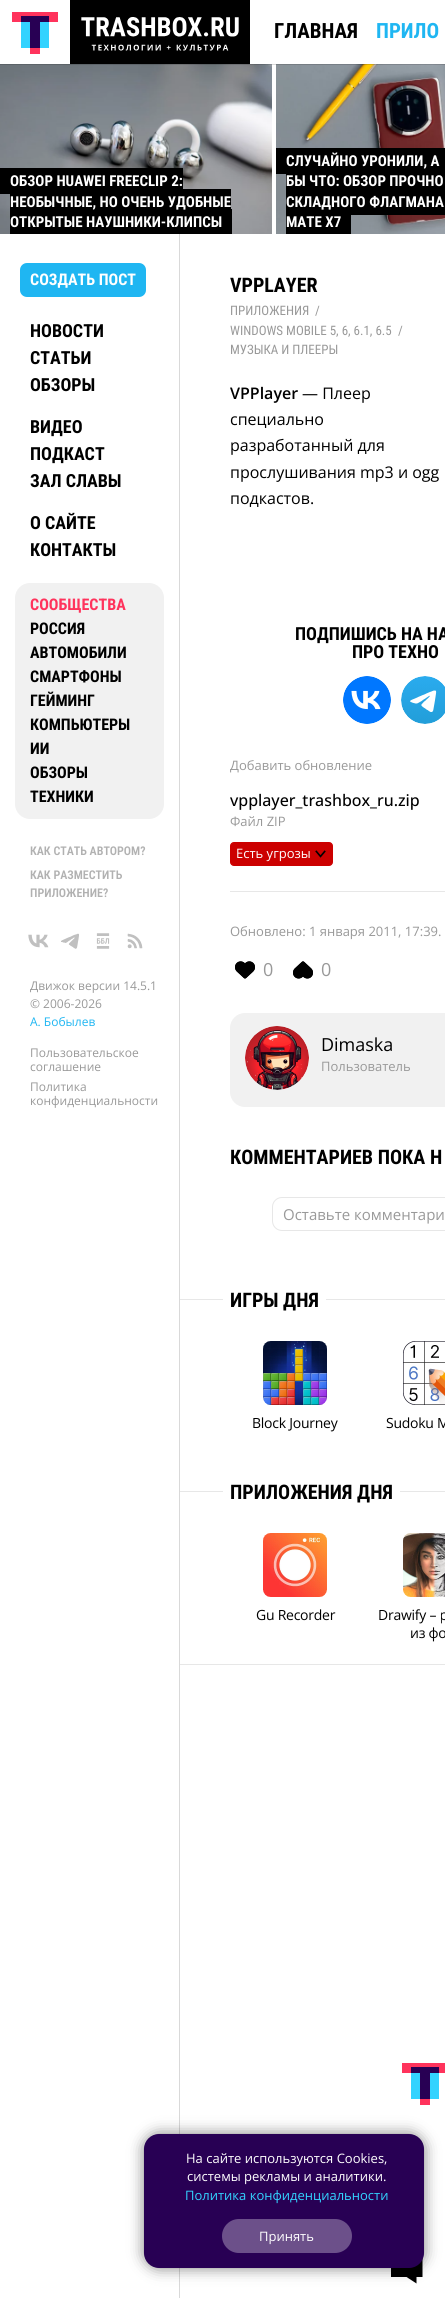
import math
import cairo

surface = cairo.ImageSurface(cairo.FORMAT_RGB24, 445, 2298)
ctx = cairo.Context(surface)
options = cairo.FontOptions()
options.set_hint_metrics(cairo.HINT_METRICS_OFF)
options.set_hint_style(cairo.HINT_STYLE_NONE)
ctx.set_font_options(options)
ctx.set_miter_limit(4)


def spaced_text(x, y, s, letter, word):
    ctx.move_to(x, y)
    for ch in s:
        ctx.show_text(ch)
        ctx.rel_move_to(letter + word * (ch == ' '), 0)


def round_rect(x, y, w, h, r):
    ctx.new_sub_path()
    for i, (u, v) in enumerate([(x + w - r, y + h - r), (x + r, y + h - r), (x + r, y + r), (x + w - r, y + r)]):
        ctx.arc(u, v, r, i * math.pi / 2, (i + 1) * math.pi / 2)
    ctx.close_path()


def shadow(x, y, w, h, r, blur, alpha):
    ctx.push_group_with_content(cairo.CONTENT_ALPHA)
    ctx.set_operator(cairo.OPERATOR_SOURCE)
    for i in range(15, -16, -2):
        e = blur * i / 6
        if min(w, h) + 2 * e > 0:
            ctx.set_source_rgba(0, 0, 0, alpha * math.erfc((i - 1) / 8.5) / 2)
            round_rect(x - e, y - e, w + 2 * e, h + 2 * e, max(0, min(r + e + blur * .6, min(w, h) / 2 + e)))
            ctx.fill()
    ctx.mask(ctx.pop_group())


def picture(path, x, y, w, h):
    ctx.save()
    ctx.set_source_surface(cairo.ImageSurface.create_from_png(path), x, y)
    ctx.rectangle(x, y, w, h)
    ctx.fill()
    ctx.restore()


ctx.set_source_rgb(1, 1, 1)
ctx.paint()
ctx.set_source_rgb(1, 0.2, 0.361)
ctx.rectangle(12, 12, 46, 10)
ctx.fill()
ctx.set_source_rgb(0.157, 0, 0.329)
ctx.rectangle(21, 16, 28, 6)
ctx.fill()
ctx.set_source_rgb(1, 0.2, 0.361)
ctx.rectangle(30, 22, 10, 32)
ctx.fill()
ctx.set_source_rgb(0.2, 0.827, 1)
ctx.rectangle(21, 22, 28, 26)
ctx.fill()
ctx.set_source_rgb(0.157, 0, 0.329)
ctx.rectangle(30, 22, 10, 26)
ctx.fill()
ctx.set_source_rgb(0, 0, 0)
ctx.rectangle(70, 0, 180, 64)
ctx.fill()
picture("img1.png", 81, 17, 158, 34)
ctx.select_font_face("Roboto Condensed", cairo.FONT_SLANT_NORMAL, cairo.FONT_WEIGHT_BOLD)
ctx.set_font_size(21)
ctx.move_to(274, 38)
ctx.show_text("ГЛАВНАЯ")
ctx.set_source_rgb(0.122, 0.714, 0.949)
ctx.move_to(376, 38)
ctx.show_text("ПРИЛО")
picture("img2.png", 0, 64, 272, 170)
picture("img3.png", 276, 64, 169, 170)
ctx.set_source_rgba(0, 0, 0, 0.15)
ctx.rectangle(0, 64, 445, 1)
ctx.fill()
ctx.set_source_rgb(0, 0, 0)
ctx.rectangle(0, 168, 183, 26)
ctx.fill()
ctx.set_font_size(15)
ctx.set_source_rgb(1, 1, 1)
ctx.move_to(10, 186)
ctx.show_text("ОБЗОР HUAWEI FREECLIP 2:")
ctx.set_source_rgb(0, 0, 0)
ctx.rectangle(10, 189, 221, 20)
ctx.fill()
ctx.rectangle(10, 209, 222, 25)
ctx.fill()
ctx.set_source_rgb(1, 1, 1)
ctx.move_to(10, 207)
ctx.show_text("НЕОБЫЧНЫЕ, НО ОЧЕНЬ УДОБНЫЕ")
ctx.move_to(10, 227)
ctx.show_text("ОТКРЫТЫЕ НАУШНИКИ-КЛИПСЫ")
ctx.set_source_rgb(0, 0, 0)
ctx.rectangle(276, 148, 169, 26)
ctx.fill()
ctx.set_source_rgb(1, 1, 1)
ctx.move_to(286, 166)
ctx.show_text("СЛУЧАЙНО УРОНИЛИ, А")
ctx.set_source_rgb(0, 0, 0)
ctx.rectangle(286, 174, 159, 41)
ctx.fill()
ctx.set_source_rgb(1, 1, 1)
ctx.move_to(286, 186)
ctx.show_text("БЫ ЧТО: ОБЗОР ПРОЧНО")
ctx.move_to(286, 207)
ctx.show_text("СКЛАДНОГО ФЛАГМАНА")
ctx.set_source_rgb(0, 0, 0)
ctx.rectangle(286, 215, 65, 19)
ctx.fill()
ctx.set_source_rgb(1, 1, 1)
ctx.move_to(286, 227)
ctx.show_text("MATE X7")
ctx.set_source_rgb(0.851, 0.851, 0.851)
ctx.rectangle(179, 234, 1, 2064)
ctx.fill()
ctx.set_source_rgb(0.122, 0.714, 0.949)
round_rect(20, 263, 126, 34, 7)
ctx.fill()
ctx.set_font_size(16)
ctx.set_source_rgb(1, 1, 1)
ctx.move_to(30, 285)
ctx.show_text("СОЗДАТЬ ПОСТ")
ctx.set_font_size(18)
ctx.set_source_rgb(0, 0, 0)
ctx.move_to(30, 337)
ctx.show_text("НОВОСТИ")
ctx.move_to(30, 364)
ctx.show_text("СТАТЬИ")
ctx.move_to(30, 391)
ctx.show_text("ОБЗОРЫ")
ctx.move_to(30, 433)
ctx.show_text("ВИДЕО")
ctx.move_to(30, 460)
ctx.show_text("ПОДКАСТ")
ctx.move_to(30, 487)
ctx.show_text("ЗАЛ СЛАВЫ")
ctx.move_to(30, 529)
ctx.show_text("О САЙТЕ")
ctx.move_to(30, 556)
ctx.show_text("КОНТАКТЫ")
ctx.set_source_rgb(0.945, 0.945, 0.945)
round_rect(15, 583, 149, 236, 15)
ctx.fill()
ctx.set_font_size(16)
ctx.set_source_rgb(1, 0.2, 0.361)
ctx.move_to(30, 610)
ctx.show_text("СООБЩЕСТВА")
ctx.set_source_rgb(0, 0, 0)
ctx.move_to(30, 634)
ctx.show_text("РОССИЯ")
ctx.move_to(30, 658)
ctx.show_text("АВТОМОБИЛИ")
ctx.move_to(30, 682)
ctx.show_text("СМАРТФОНЫ")
ctx.move_to(30, 706)
ctx.show_text("ГЕЙМИНГ")
ctx.move_to(30, 730)
ctx.show_text("КОМПЬЮТЕРЫ")
ctx.move_to(30, 754)
ctx.show_text("ИИ")
ctx.move_to(30, 778)
ctx.show_text("ОБЗОРЫ")
ctx.move_to(30, 802)
ctx.show_text("ТЕХНИКИ")
ctx.select_font_face("Roboto Condensed SemiBold")
ctx.set_font_size(12)
ctx.set_source_rgb(0.694, 0.694, 0.694)
ctx.move_to(30, 855)
ctx.show_text("КАК СТАТЬ АВТОРОМ?")
ctx.move_to(30, 879)
ctx.show_text("КАК РАЗМЕСТИТЬ")
ctx.move_to(30, 897)
ctx.show_text("ПРИЛОЖЕНИЕ?")
picture("img4.png", 28, 934, 21, 14)
picture("img5.png", 61, 933, 18, 16)
picture("img6.png", 96, 933, 14, 16)
picture("img7.png", 127, 933, 16, 16)
ctx.select_font_face("Open Sans")
ctx.set_source_rgb(0.6, 0.6, 0.6)
ctx.move_to(30, 990)
ctx.show_text("Движок версии 14.5.1")
ctx.move_to(30, 1008)
ctx.show_text("© 2006-2026")
ctx.set_source_rgb(0.122, 0.714, 0.949)
ctx.move_to(30, 1026)
ctx.show_text("А. Бобылев")
ctx.set_source_rgb(0.6, 0.6, 0.6)
ctx.move_to(30, 1057)
ctx.show_text("Пользовательское")
ctx.move_to(30, 1071)
ctx.show_text("соглашение")
ctx.move_to(30, 1091)
ctx.show_text("Политика")
ctx.move_to(30, 1105)
ctx.show_text("конфиденциальности")
ctx.select_font_face("Roboto Condensed", cairo.FONT_SLANT_NORMAL, cairo.FONT_WEIGHT_BOLD)
ctx.set_font_size(20)
ctx.set_source_rgb(0, 0, 0)
ctx.move_to(230, 292)
ctx.show_text("VPPLAYER")
ctx.select_font_face("Roboto Condensed")
ctx.set_font_size(13)
ctx.set_source_rgb(0.6, 0.6, 0.6)
ctx.move_to(230, 315)
ctx.show_text("ПРИЛОЖЕНИЯ")
ctx.move_to(315, 315)
ctx.show_text("/")
ctx.move_to(230, 335)
ctx.show_text("WINDOWS MOBILE 5, 6, 6.1, 6.5")
ctx.move_to(398, 335)
ctx.show_text("/")
ctx.move_to(230, 354)
ctx.show_text("МУЗЫКА И ПЛЕЕРЫ")
ctx.select_font_face("Open Sans SemiBold")
ctx.set_font_size(16)
ctx.set_source_rgb(0, 0, 0)
ctx.move_to(230, 399)
ctx.show_text("VPPlayer")
ctx.select_font_face("Open Sans")
ctx.move_to(302, 399)
ctx.show_text("— Плеер")
ctx.move_to(230, 425)
ctx.show_text("специально")
ctx.move_to(230, 451)
ctx.show_text("разработанный для")
ctx.move_to(230, 478)
ctx.show_text("прослушивания mp3 и ogg")
ctx.move_to(230, 504)
ctx.show_text("подкастов.")
ctx.select_font_face("Roboto Condensed", cairo.FONT_SLANT_NORMAL, cairo.FONT_WEIGHT_BOLD)
ctx.set_font_size(18)
ctx.move_to(295, 640)
ctx.show_text("ПОДПИШИСЬ НА НА")
ctx.move_to(352, 658)
ctx.show_text("ПРО ТЕХНО")
picture("img8.png", 343, 676, 48, 48)
picture("img9.png", 401, 676, 44, 48)
ctx.select_font_face("Open Sans")
ctx.set_font_size(13)
ctx.set_source_rgb(0.6, 0.6, 0.6)
ctx.move_to(230, 770)
ctx.show_text("Добавить обновление")
ctx.set_source_rgb(0.906, 0.906, 0.906)
ctx.rectangle(230, 891, 215, 1)
ctx.fill()
ctx.select_font_face("Open Sans Medium")
ctx.set_font_size(16)
ctx.set_source_rgb(0, 0, 0)
ctx.move_to(230, 806)
ctx.show_text("vpplayer_trashbox_ru.zip")
ctx.select_font_face("Open Sans")
ctx.set_font_size(13)
ctx.set_source_rgb(0.6, 0.6, 0.6)
ctx.move_to(230, 826)
ctx.show_text("Файл ZIP")
ctx.set_source_rgb(0.8, 0, 0)
round_rect(230.5, 842.5, 102, 23, 3.5)
ctx.fill_preserve()
ctx.set_line_width(1)
ctx.stroke()
ctx.set_source_rgb(1, 1, 1)
ctx.move_to(236, 858)
ctx.show_text("Есть угрозы")
picture("img10.png", 315, 850, 11, 8)
ctx.set_source_rgb(0.6, 0.6, 0.6)
ctx.move_to(230, 936)
ctx.show_text("Обновлено: 1 января 2011, 17:39.")
picture("img11.png", 235, 961, 20, 18)
ctx.set_font_size(18)
ctx.move_to(263, 976)
ctx.show_text("0")
picture("img12.png", 293, 961, 20, 18)
ctx.move_to(321, 976)
ctx.show_text("0")
ctx.set_source_rgb(0.945, 0.945, 0.945)
round_rect(230, 1013, 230, 94, 15)
ctx.fill()
picture("img13.png", 245, 1026, 64, 64)
ctx.set_source_rgb(0, 0, 0)
ctx.move_to(321, 1051)
ctx.show_text("Dimaska")
ctx.set_font_size(13)
ctx.set_source_rgb(0.6, 0.6, 0.6)
ctx.move_to(321, 1071)
ctx.show_text("Пользователь")
ctx.select_font_face("Roboto Condensed", cairo.FONT_SLANT_NORMAL, cairo.FONT_WEIGHT_BOLD)
ctx.set_font_size(20)
ctx.set_source_rgb(0, 0, 0)
ctx.move_to(230, 1164)
ctx.show_text("КОММЕНТАРИЕВ ПОКА Н")
round_rect(272.5, 1197.5, 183, 33, 9.5)
ctx.set_source_rgb(0.906, 0.906, 0.906)
ctx.stroke()
ctx.select_font_face("Open Sans")
ctx.set_font_size(15)
ctx.set_source_rgb(0.6, 0.6, 0.6)
ctx.move_to(283, 1220)
ctx.show_text("Оставьте комментари")
ctx.set_source_rgb(0, 0, 0)
ctx.new_path()
ctx.move_to(422.5, 2258)
ctx.line_to(391, 2258)
ctx.line_to(391, 2277)
ctx.line_to(406.5, 2277)
ctx.line_to(416.5, 2283.5)
ctx.line_to(416.5, 2277)
ctx.line_to(422.5, 2277)
ctx.close_path()
ctx.fill()
ctx.set_source_rgb(0.906, 0.906, 0.906)
ctx.rectangle(180, 1664, 265, 1)
ctx.fill()
ctx.rectangle(180, 1299, 265, 1)
ctx.fill()
ctx.set_source_rgb(1, 1, 1)
ctx.rectangle(223, 1299, 103, 1)
ctx.fill()
ctx.select_font_face("Roboto Condensed", cairo.FONT_SLANT_NORMAL, cairo.FONT_WEIGHT_BOLD)
ctx.set_font_size(20)
ctx.set_source_rgb(0, 0, 0)
ctx.move_to(230, 1307)
ctx.show_text("ИГРЫ ДНЯ")
picture("img14.png", 263, 1341, 64, 64)
ctx.select_font_face("Open Sans")
ctx.set_font_size(14)
spaced_text(252, 1428, "Block Journey", -0.25, 0)
picture("img15.png", 403, 1341, 42, 64)
spaced_text(386, 1428, "Sudoku M", -0.25, 0)
ctx.set_source_rgb(0.906, 0.906, 0.906)
ctx.rectangle(180, 1491, 265, 1)
ctx.fill()
ctx.set_source_rgb(1, 1, 1)
ctx.rectangle(223, 1491, 177, 1)
ctx.fill()
ctx.select_font_face("Roboto Condensed", cairo.FONT_SLANT_NORMAL, cairo.FONT_WEIGHT_BOLD)
ctx.set_font_size(20)
ctx.set_source_rgb(0, 0, 0)
ctx.move_to(230, 1499)
ctx.show_text("ПРИЛОЖЕНИЯ ДНЯ")
picture("img16.png", 263, 1533, 64, 64)
ctx.select_font_face("Open Sans")
ctx.set_font_size(14)
spaced_text(256, 1620, "Gu Recorder", -0.25, 0)
picture("img17.png", 403, 1533, 42, 64)
spaced_text(378, 1620, "Drawify – р", -0.25, 0)
spaced_text(410, 1638, "из фо", -0.25, 0)
ctx.set_source_rgb(1, 0.2, 0.361)
ctx.rectangle(402, 2063, 43, 10)
ctx.fill()
ctx.set_source_rgb(0.157, 0, 0.329)
ctx.rectangle(411, 2067, 28, 6)
ctx.fill()
ctx.set_source_rgb(1, 0.2, 0.361)
ctx.rectangle(420, 2073, 10, 32)
ctx.fill()
ctx.set_source_rgb(0.2, 0.827, 1)
ctx.rectangle(411, 2073, 28, 26)
ctx.fill()
ctx.set_source_rgb(0.157, 0, 0.329)
ctx.rectangle(420, 2073, 10, 26)
ctx.fill()
ctx.set_source_rgb(0, 0, 0)
shadow(144, 2134, 280, 134, 15, 7.5, 0.5)
ctx.set_source_rgb(0.157, 0, 0.329)
round_rect(144, 2134, 280, 134, 15)
ctx.fill()
ctx.set_font_size(13)
ctx.set_source_rgb(1, 1, 1)
ctx.move_to(186, 2163)
ctx.show_text("На сайте используются Cookies,")
ctx.move_to(187, 2181)
ctx.show_text("системы рекламы и аналитики.")
ctx.set_source_rgb(0.2, 0.827, 1)
ctx.move_to(185, 2200)
ctx.show_text("Политика конфиденциальности")
ctx.set_source_rgb(0.424, 0.314, 0.541)
round_rect(222, 2219, 130, 34, 17)
ctx.fill()
ctx.set_source_rgb(1, 1, 1)
ctx.move_to(259, 2241)
ctx.show_text("Принять")
surface.write_to_png("page.png")
